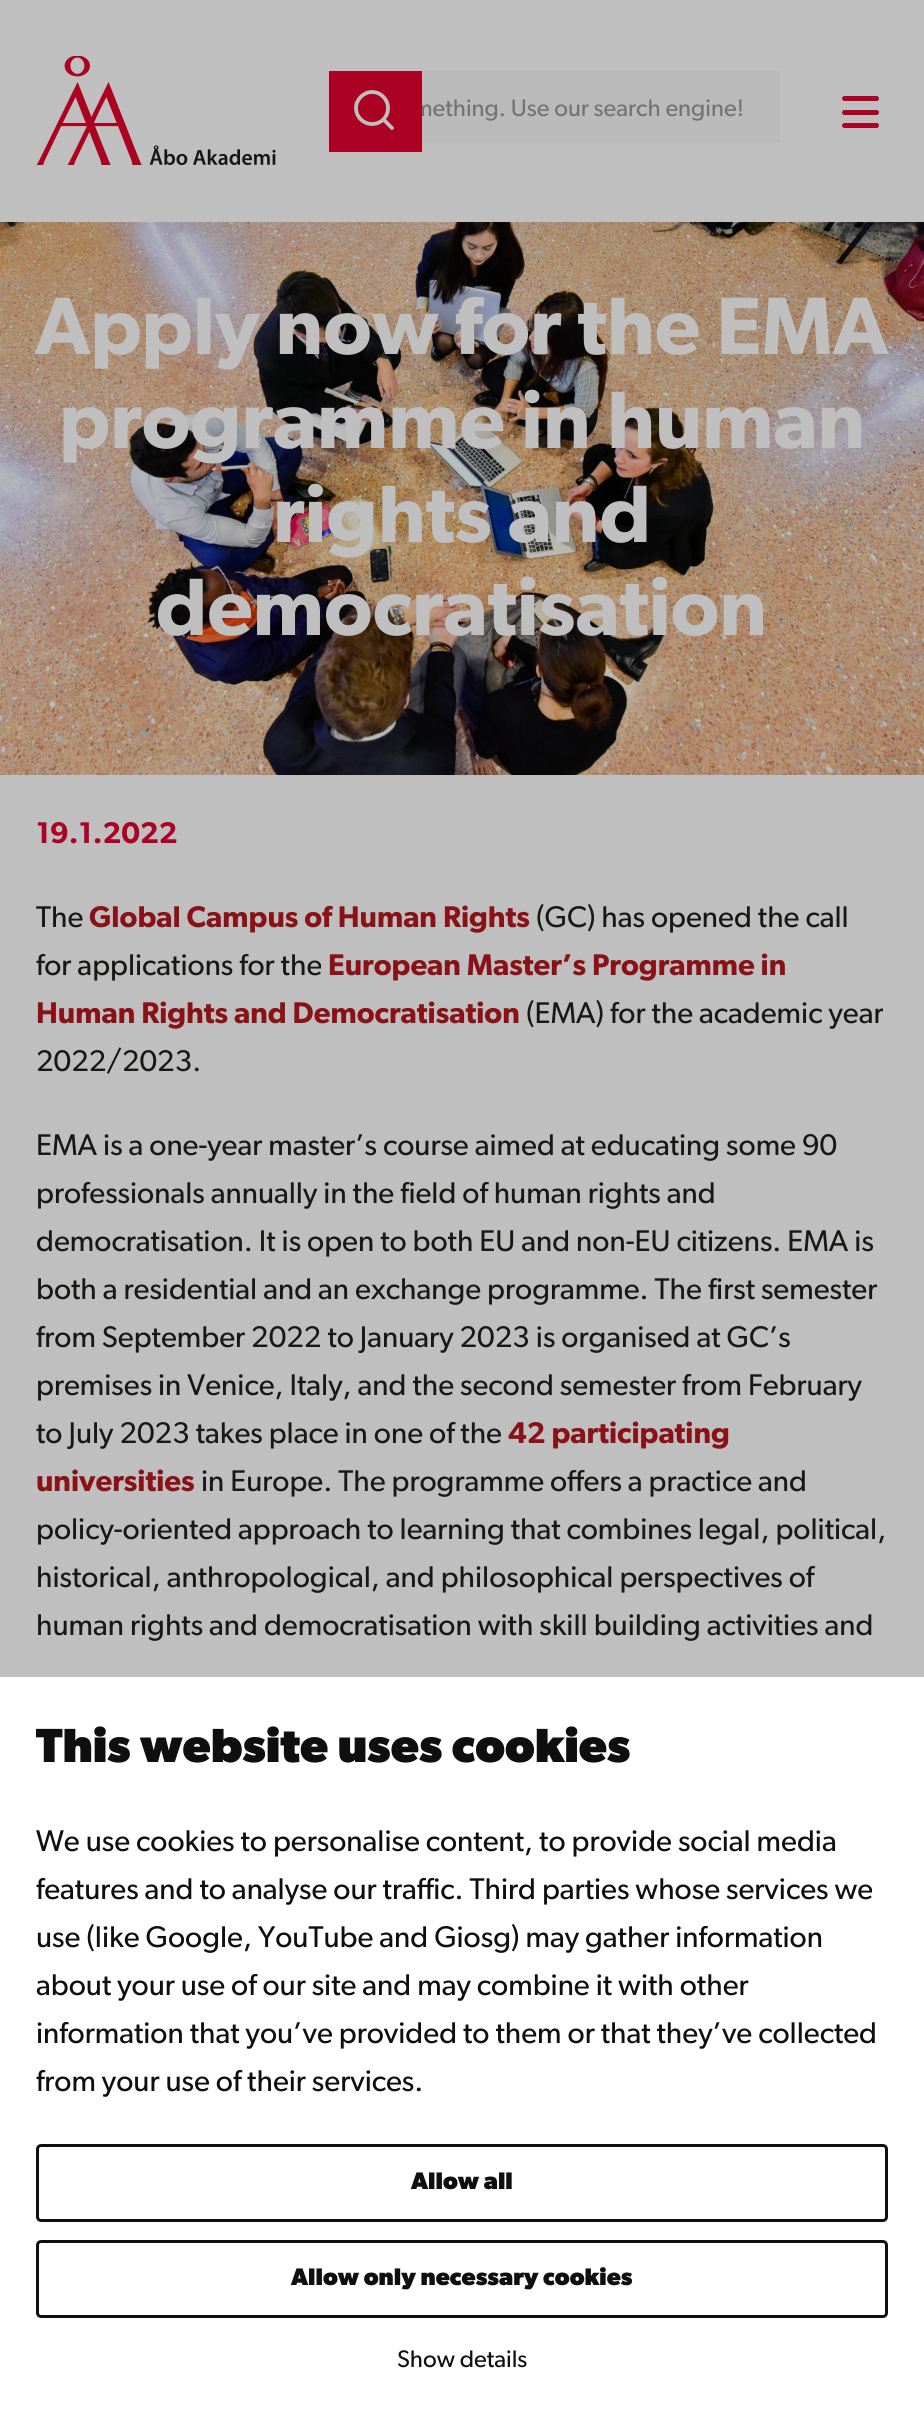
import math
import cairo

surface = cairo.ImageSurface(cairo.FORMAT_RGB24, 924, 2421)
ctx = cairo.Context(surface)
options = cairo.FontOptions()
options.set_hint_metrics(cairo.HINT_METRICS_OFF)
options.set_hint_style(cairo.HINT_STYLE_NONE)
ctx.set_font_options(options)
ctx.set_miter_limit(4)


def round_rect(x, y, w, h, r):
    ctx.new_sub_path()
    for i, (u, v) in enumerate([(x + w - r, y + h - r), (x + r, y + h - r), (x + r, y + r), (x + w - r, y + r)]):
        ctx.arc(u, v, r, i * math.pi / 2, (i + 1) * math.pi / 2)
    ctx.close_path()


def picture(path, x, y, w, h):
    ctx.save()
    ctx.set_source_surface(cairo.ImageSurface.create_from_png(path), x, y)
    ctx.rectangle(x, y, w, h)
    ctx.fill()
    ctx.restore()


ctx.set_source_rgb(0.749, 0.749, 0.749)
ctx.paint()
picture("img1.png", 36, 56, 240, 109)
ctx.set_source_rgb(0.671, 0.008, 0.137)
ctx.rectangle(329, 71, 93, 81)
ctx.fill()
ctx.new_path()
ctx.move_to(392, 128)
ctx.line_to(383.5, 119.5)
ctx.close_path()
ctx.move_to(388, 108)
ctx.curve_to(388, 117, 381, 124, 372, 124)
ctx.curve_to(363.5, 124, 356, 117, 356, 108)
ctx.curve_to(356, 99.5, 363.5, 92, 372, 92)
ctx.curve_to(381, 92, 388, 99.5, 388, 108)
ctx.close_path()
ctx.set_source_rgb(0.749, 0.749, 0.749)
ctx.set_line_width(3.8)
ctx.set_line_cap(cairo.LINE_CAP_ROUND)
ctx.set_line_join(cairo.LINE_JOIN_ROUND)
ctx.stroke()
ctx.set_source_rgb(0.729, 0.729, 0.729)
ctx.rectangle(422, 71, 358, 72)
ctx.fill()
ctx.save()
ctx.rectangle(422, 71, 358, 81)
ctx.clip()
ctx.select_font_face("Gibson")
ctx.set_font_size(24)
ctx.set_source_rgb(0.451, 0.451, 0.451)
ctx.move_to(413, 116)
ctx.show_text("mething. Use our search engine!")
ctx.restore()
ctx.set_source_rgb(0.671, 0.008, 0.137)
round_rect(842, 96, 37, 5, 2.5)
ctx.fill()
round_rect(842, 110, 37, 5, 2.5)
ctx.fill()
round_rect(842, 123, 37, 5, 2.5)
ctx.fill()
picture("img2.png", 0, 222, 924, 553)
ctx.select_font_face("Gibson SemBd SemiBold")
ctx.set_font_size(81.5)
ctx.set_source_rgb(0.749, 0.749, 0.749)
ctx.move_to(35, 354)
ctx.show_text("Apply now for the EMA")
ctx.move_to(59, 448)
ctx.show_text("programme in human")
ctx.move_to(273, 542)
ctx.show_text("rights and")
ctx.move_to(156, 635)
ctx.show_text("democratisation")
ctx.set_font_size(30)
ctx.set_source_rgb(0.671, 0.008, 0.137)
ctx.move_to(36, 843)
ctx.show_text("19.1.2022")
ctx.select_font_face("Gibson")
ctx.set_source_rgb(0.094, 0.094, 0.09)
ctx.move_to(36, 927)
ctx.show_text("The")
ctx.select_font_face("Gibson SemBd SemiBold")
ctx.set_source_rgb(0.541, 0.067, 0.086)
ctx.move_to(89, 927)
ctx.show_text("Global Campus of Human Rights")
ctx.select_font_face("Gibson")
ctx.set_source_rgb(0.094, 0.094, 0.09)
ctx.move_to(536, 927)
ctx.show_text("(GC) has opened the call")
ctx.move_to(36, 975)
ctx.show_text("for applications for the")
ctx.select_font_face("Gibson SemBd SemiBold")
ctx.set_source_rgb(0.541, 0.067, 0.086)
ctx.move_to(328, 975)
ctx.show_text("European Master’s Programme in")
ctx.move_to(36, 1023)
ctx.show_text("Human Rights and Democratisation")
ctx.select_font_face("Gibson")
ctx.set_source_rgb(0.094, 0.094, 0.09)
ctx.move_to(526, 1023)
ctx.show_text("(EMA) for the academic year")
ctx.move_to(36, 1071)
ctx.show_text("2022/2023.")
ctx.move_to(36, 1155)
ctx.show_text("EMA is a one-year master’s course aimed at educating some 90")
ctx.move_to(36, 1203)
ctx.show_text("professionals annually in the field of human rights and")
ctx.move_to(36, 1251)
ctx.show_text("democratisation. It is open to both EU and non-EU citizens. EMA is")
ctx.move_to(36, 1299)
ctx.show_text("both a residential and an exchange programme. The first semester")
ctx.move_to(36, 1347)
ctx.show_text("from September 2022 to January 2023 is organised at GC’s")
ctx.move_to(36, 1395)
ctx.show_text("premises in Venice, Italy, and the second semester from February")
ctx.move_to(36, 1443)
ctx.show_text("to July 2023 takes place in one of the")
ctx.select_font_face("Gibson SemBd SemiBold")
ctx.set_source_rgb(0.541, 0.067, 0.086)
ctx.move_to(508, 1443)
ctx.show_text("42 participating")
ctx.move_to(36, 1491)
ctx.show_text("universities")
ctx.select_font_face("Gibson")
ctx.set_source_rgb(0.094, 0.094, 0.09)
ctx.move_to(201, 1491)
ctx.show_text("in Europe. The programme offers a practice and")
ctx.move_to(36, 1539)
ctx.show_text("policy-oriented approach to learning that combines legal, political,")
ctx.move_to(36, 1587)
ctx.show_text("historical, anthropological, and philosophical perspectives of")
ctx.move_to(36, 1635)
ctx.show_text("human rights and democratisation with skill building activities and")
ctx.set_source_rgb(1, 1, 1)
ctx.rectangle(0, 1677, 924, 744)
ctx.fill()
ctx.select_font_face("Gibson", cairo.FONT_SLANT_NORMAL, cairo.FONT_WEIGHT_BOLD)
ctx.set_font_size(48)
ctx.set_source_rgb(0.059, 0.059, 0.059)
ctx.move_to(36, 1762)
ctx.show_text("This website uses cookies")
ctx.select_font_face("Gibson")
ctx.set_font_size(30)
ctx.move_to(36, 1851)
ctx.show_text("We use cookies to personalise content, to provide social media")
ctx.move_to(36, 1899)
ctx.show_text("features and to analyse our traffic. Third parties whose services we")
ctx.move_to(36, 1947)
ctx.show_text("use (like Google, YouTube and Giosg) may gather information")
ctx.move_to(36, 1995)
ctx.show_text("about your use of our site and may combine it with other")
ctx.move_to(36, 2043)
ctx.show_text("information that you’ve provided to them or that they’ve collected")
ctx.move_to(36, 2091)
ctx.show_text("from your use of their services.")
round_rect(37.5, 2145.5, 849, 75, 3.5)
ctx.set_line_width(3)
ctx.set_line_cap(cairo.LINE_CAP_BUTT)
ctx.set_line_join(cairo.LINE_JOIN_MITER)
ctx.stroke()
ctx.select_font_face("Gibson", cairo.FONT_SLANT_NORMAL, cairo.FONT_WEIGHT_BOLD)
ctx.set_font_size(24)
ctx.move_to(411, 2189)
ctx.show_text("Allow all")
round_rect(37.5, 2241.5, 849, 75, 3.5)
ctx.stroke()
ctx.move_to(291, 2285)
ctx.show_text("Allow only necessary cookies")
ctx.select_font_face("Gibson")
ctx.move_to(397, 2367)
ctx.show_text("Show details")
surface.write_to_png("page.png")
